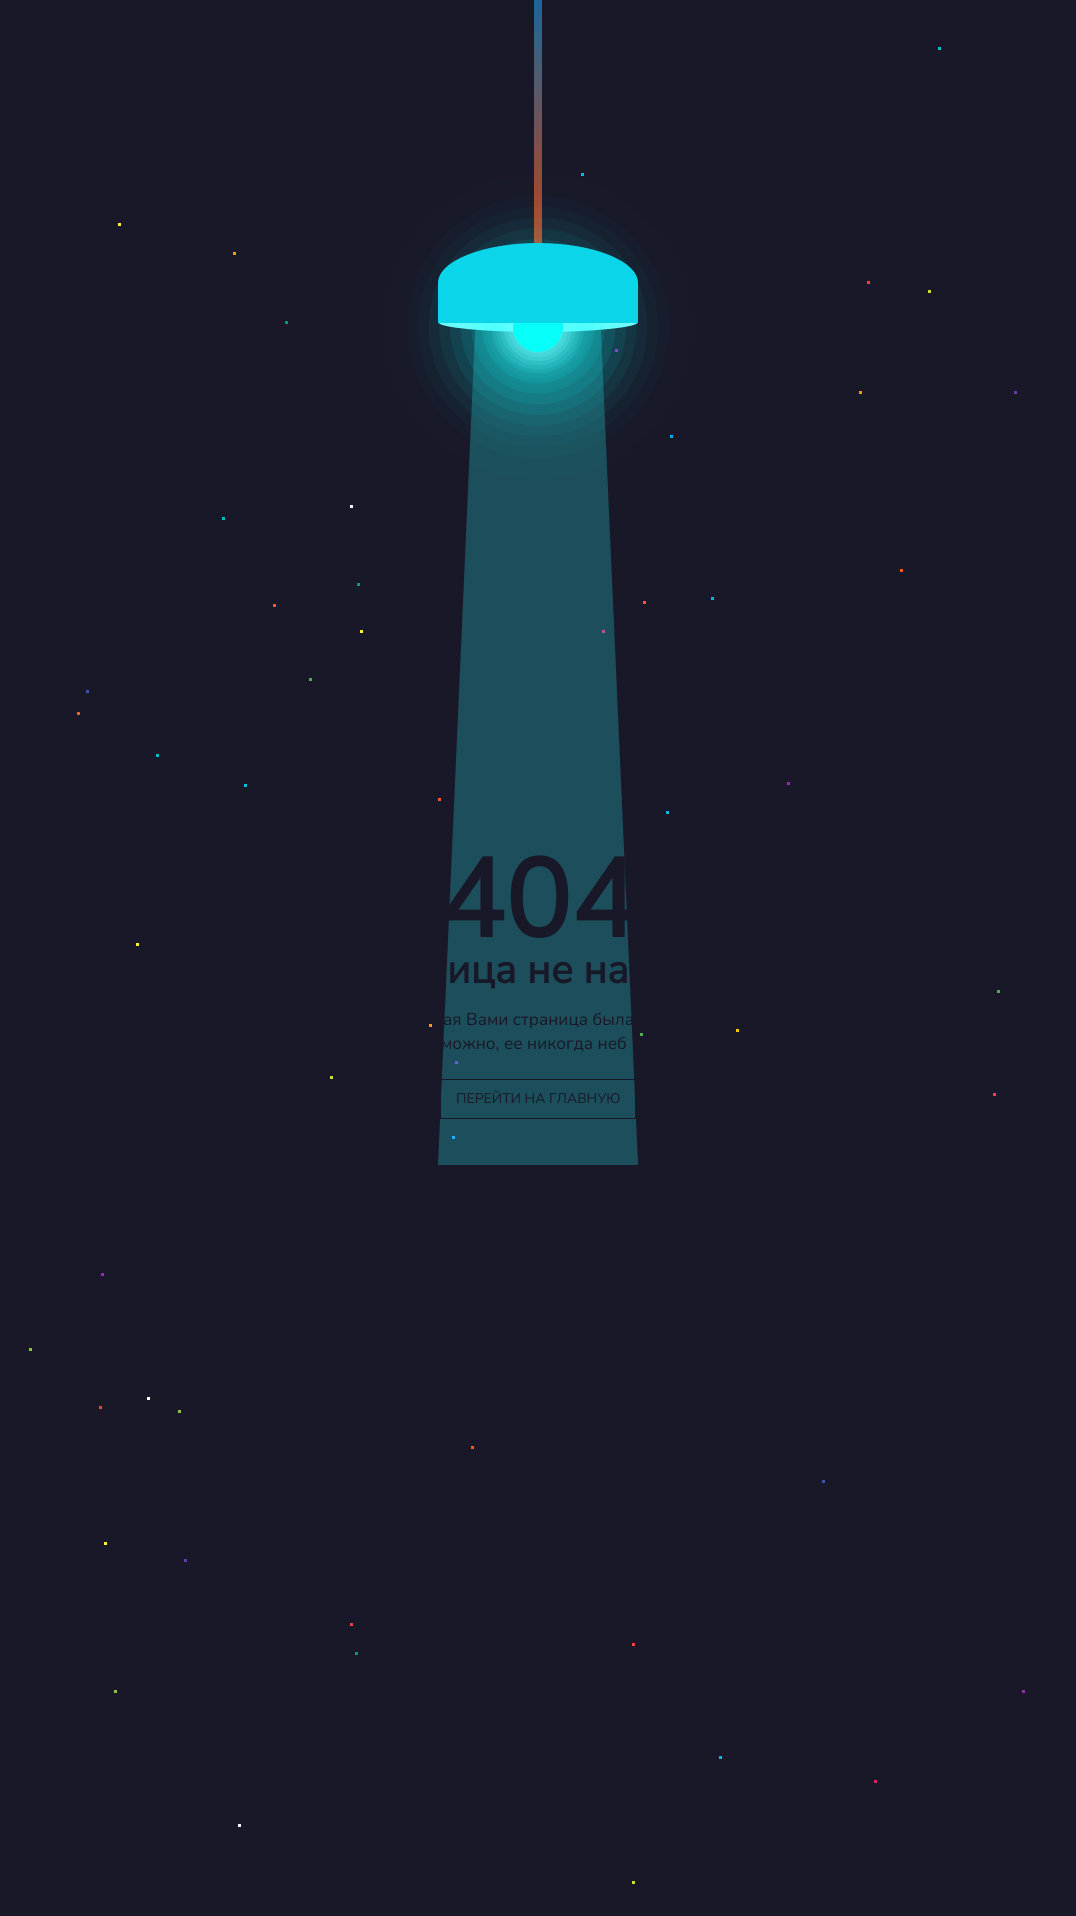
import math
import cairo

surface = cairo.ImageSurface(cairo.FORMAT_RGB24, 1076, 1916)
ctx = cairo.Context(surface)
options = cairo.FontOptions()
options.set_hint_metrics(cairo.HINT_METRICS_OFF)
options.set_hint_style(cairo.HINT_STYLE_NONE)
ctx.set_font_options(options)
ctx.set_miter_limit(4)


def round_rect(x, y, w, h, r):
    ctx.new_sub_path()
    for i, (u, v) in enumerate([(x + w - r, y + h - r), (x + r, y + h - r), (x + r, y + r), (x + w - r, y + r)]):
        ctx.arc(u, v, r, i * math.pi / 2, (i + 1) * math.pi / 2)
    ctx.close_path()


def shadow(x, y, w, h, r, blur, alpha):
    ctx.push_group_with_content(cairo.CONTENT_ALPHA)
    ctx.set_operator(cairo.OPERATOR_SOURCE)
    for i in range(15, -16, -2):
        e = blur * i / 6
        if min(w, h) + 2 * e > 0:
            ctx.set_source_rgba(0, 0, 0, alpha * math.erfc((i - 1) / 8.5) / 2)
            round_rect(x - e, y - e, w + 2 * e, h + 2 * e, max(0, min(r + e + blur * .6, min(w, h) / 2 + e)))
            ctx.fill()
    ctx.mask(ctx.pop_group())


ctx.set_source_rgb(0.094, 0.094, 0.157)
ctx.paint()
gradient = cairo.LinearGradient(538, -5, 538, 243)
gradient.add_color_stop_rgba(0, 0.09, 0.408, 0.604, 1)
gradient.add_color_stop_rgba(1, 0.757, 0.255, 0.098, 1)
ctx.set_source(gradient)
ctx.rectangle(534, 0, 8, 243)
ctx.fill()
ctx.set_source_rgb(0.914, 0.118, 0.388)
ctx.rectangle(602, 630, 3, 3)
ctx.fill()
ctx.set_source_rgb(0.129, 0.588, 0.953)
ctx.rectangle(452, 1136, 3, 3)
ctx.fill()
ctx.set_source_rgb(0.612, 0.153, 0.69)
ctx.rectangle(615, 349, 3, 3)
ctx.fill()
ctx.set_source_rgb(1, 0.341, 0.133)
ctx.rectangle(438, 798, 3, 3)
ctx.fill()
ctx.set_source_rgb(0.404, 0.227, 0.718)
ctx.rectangle(455, 1061, 3, 3)
ctx.fill()
ctx.set_source_rgba(0.173, 1, 1, 0.24)
ctx.new_path()
ctx.move_to(478, 265)
ctx.line_to(438, 1165)
ctx.line_to(638, 1165)
ctx.line_to(598, 265)
ctx.close_path()
ctx.fill()
ctx.set_source_rgb(0.522, 1, 1)
ctx.new_path()
ctx.move_to(538, 312)
ctx.curve_to(593, 312, 638, 316.5, 638, 322)
ctx.curve_to(638, 327.5, 593, 332, 538, 332)
ctx.curve_to(483, 332, 438, 327.5, 438, 322)
ctx.curve_to(438, 316.5, 483, 312, 538, 312)
ctx.close_path()
ctx.fill()
ctx.set_source_rgb(0, 1, 1)
shadow(498, 287, 80, 80, 40, 15, 0.2)
ctx.set_source_rgb(0.012, 0.663, 0.957)
ctx.rectangle(670, 435, 3, 3)
ctx.fill()
ctx.set_source_rgb(0, 0.737, 0.831)
ctx.rectangle(581, 173, 3, 3)
ctx.fill()
ctx.set_source_rgb(0, 1, 1)
shadow(466, 255, 144, 144, 72, 32, 0.5)
ctx.set_source_rgb(0.498, 1, 1)
shadow(506, 295, 64, 64, 32, 12.5, 0.8)
ctx.set_source_rgb(0.031, 1, 0.98)
ctx.arc(538, 327, 25, 0, 2 * math.pi)
ctx.fill()
ctx.set_source_rgb(0.043, 0.835, 0.91)
ctx.new_path()
ctx.move_to(538, 243)
ctx.curve_to(593, 243, 638, 261, 638, 283)
ctx.line_to(638, 323)
ctx.line_to(438, 323)
ctx.line_to(438, 283)
ctx.curve_to(438, 261, 483, 243, 538, 243)
ctx.close_path()
ctx.fill()
ctx.set_source_rgb(1, 0.341, 0.133)
ctx.rectangle(273, 604, 3, 3)
ctx.fill()
ctx.set_source_rgb(1, 0.922, 0.231)
ctx.rectangle(136, 943, 3, 3)
ctx.fill()
ctx.set_source_rgb(0.804, 0.863, 0.224)
ctx.rectangle(330, 1076, 3, 3)
ctx.fill()
ctx.set_source_rgb(0, 0.737, 0.831)
ctx.rectangle(719, 1756, 3, 3)
ctx.fill()
ctx.set_source_rgb(0, 0.588, 0.533)
ctx.rectangle(357, 583, 3, 3)
ctx.fill()
ctx.set_source_rgb(0.404, 0.227, 0.718)
ctx.rectangle(1014, 391, 3, 3)
ctx.fill()
ctx.set_source_rgb(1, 0.341, 0.133)
ctx.rectangle(471, 1446, 3, 3)
ctx.fill()
ctx.set_source_rgb(0, 0.737, 0.831)
ctx.rectangle(156, 754, 3, 3)
ctx.fill()
ctx.set_source_rgb(1, 0.922, 0.231)
ctx.rectangle(118, 223, 3, 3)
ctx.fill()
ctx.set_source_rgb(0.612, 0.153, 0.69)
ctx.rectangle(101, 1273, 3, 3)
ctx.fill()
ctx.set_source_rgb(0.804, 0.863, 0.224)
ctx.rectangle(928, 290, 3, 3)
ctx.fill()
ctx.set_source_rgb(0.298, 0.686, 0.314)
ctx.rectangle(309, 678, 3, 3)
ctx.fill()
ctx.rectangle(997, 990, 3, 3)
ctx.fill()
ctx.set_source_rgb(0.957, 0.263, 0.212)
ctx.rectangle(867, 281, 3, 3)
ctx.fill()
ctx.set_source_rgb(1, 1, 1)
ctx.rectangle(147, 1397, 3, 3)
ctx.fill()
ctx.set_source_rgb(0.247, 0.318, 0.71)
ctx.rectangle(822, 1480, 3, 3)
ctx.fill()
ctx.set_source_rgb(1, 1, 1)
ctx.rectangle(238, 1824, 3, 3)
ctx.fill()
ctx.set_source_rgb(1, 0.596, 0)
ctx.rectangle(859, 391, 3, 3)
ctx.fill()
ctx.set_source_rgb(1, 1, 1)
ctx.rectangle(350, 505, 3, 3)
ctx.fill()
ctx.set_source_rgb(0, 0.737, 0.831)
ctx.rectangle(222, 517, 3, 3)
ctx.fill()
ctx.set_source_rgb(0.404, 0.227, 0.718)
ctx.rectangle(184, 1559, 3, 3)
ctx.fill()
ctx.set_source_rgb(0.957, 0.263, 0.212)
ctx.rectangle(632, 1643, 3, 3)
ctx.fill()
ctx.set_source_rgb(1, 0.757, 0.027)
ctx.rectangle(736, 1029, 3, 3)
ctx.fill()
ctx.set_source_rgb(0.957, 0.263, 0.212)
ctx.rectangle(993, 1093, 3, 3)
ctx.fill()
ctx.set_source_rgb(1, 0.596, 0)
ctx.rectangle(233, 252, 3, 3)
ctx.fill()
ctx.set_source_rgb(1, 0.341, 0.133)
ctx.rectangle(900, 569, 3, 3)
ctx.fill()
ctx.set_source_rgb(0, 0.737, 0.831)
ctx.rectangle(711, 597, 3, 3)
ctx.fill()
ctx.rectangle(666, 811, 3, 3)
ctx.fill()
ctx.set_source_rgb(1, 0.922, 0.231)
ctx.rectangle(104, 1542, 3, 3)
ctx.fill()
ctx.set_source_rgb(0.612, 0.153, 0.69)
ctx.rectangle(1022, 1690, 3, 3)
ctx.fill()
ctx.set_source_rgb(0, 0.588, 0.533)
ctx.rectangle(285, 321, 3, 3)
ctx.fill()
ctx.set_source_rgb(0.957, 0.263, 0.212)
ctx.rectangle(99, 1406, 3, 3)
ctx.fill()
ctx.set_source_rgb(1, 0.341, 0.133)
ctx.rectangle(77, 712, 3, 3)
ctx.fill()
ctx.set_source_rgb(0.914, 0.118, 0.388)
ctx.rectangle(874, 1780, 3, 3)
ctx.fill()
ctx.set_source_rgb(0.545, 0.765, 0.29)
ctx.rectangle(29, 1348, 3, 3)
ctx.fill()
ctx.set_source_rgb(0.804, 0.863, 0.224)
ctx.rectangle(632, 1881, 3, 3)
ctx.fill()
ctx.set_source_rgb(0.298, 0.686, 0.314)
ctx.rectangle(640, 1033, 3, 3)
ctx.fill()
ctx.set_source_rgb(1, 0.596, 0)
ctx.rectangle(429, 1024, 3, 3)
ctx.fill()
ctx.set_source_rgb(0.957, 0.263, 0.212)
ctx.rectangle(350, 1623, 3, 3)
ctx.fill()
ctx.set_source_rgb(0, 0.588, 0.533)
ctx.rectangle(355, 1652, 3, 3)
ctx.fill()
ctx.set_source_rgb(0.545, 0.765, 0.29)
ctx.rectangle(114, 1690, 3, 3)
ctx.fill()
ctx.set_source_rgb(0.612, 0.153, 0.69)
ctx.rectangle(787, 782, 3, 3)
ctx.fill()
ctx.set_source_rgb(0.545, 0.765, 0.29)
ctx.rectangle(178, 1410, 3, 3)
ctx.fill()
ctx.set_source_rgb(0, 0.737, 0.831)
ctx.rectangle(938, 47, 3, 3)
ctx.fill()
ctx.set_source_rgb(0.247, 0.318, 0.71)
ctx.rectangle(86, 690, 3, 3)
ctx.fill()
ctx.set_source_rgb(1, 0.922, 0.231)
ctx.rectangle(360, 630, 3, 3)
ctx.fill()
ctx.set_source_rgb(1, 0.341, 0.133)
ctx.rectangle(643, 601, 3, 3)
ctx.fill()
ctx.set_source_rgb(0, 0.737, 0.831)
ctx.rectangle(244, 784, 3, 3)
ctx.fill()
ctx.select_font_face("Nunito Sans", cairo.FONT_SLANT_NORMAL, cairo.FONT_WEIGHT_BOLD)
ctx.set_font_size(110)
ctx.set_source_rgb(0.094, 0.094, 0.157)
ctx.move_to(439, 937)
ctx.show_text("404")
ctx.set_font_size(40.5)
ctx.move_to(447, 983)
ctx.show_text("ица не на")
ctx.select_font_face("Nunito Sans")
ctx.set_font_size(17.25)
ctx.move_to(443, 1025)
ctx.show_text("ая Вами страница была")
ctx.move_to(441, 1049)
ctx.show_text("можно, ее никогда неб")
ctx.rectangle(440.5, 1079.5, 195, 39)
ctx.set_line_width(1)
ctx.stroke()
ctx.set_font_size(14)
ctx.move_to(456, 1103)
ctx.show_text("ПЕРЕЙТИ НА ГЛАВНУЮ")
surface.write_to_png("page.png")
